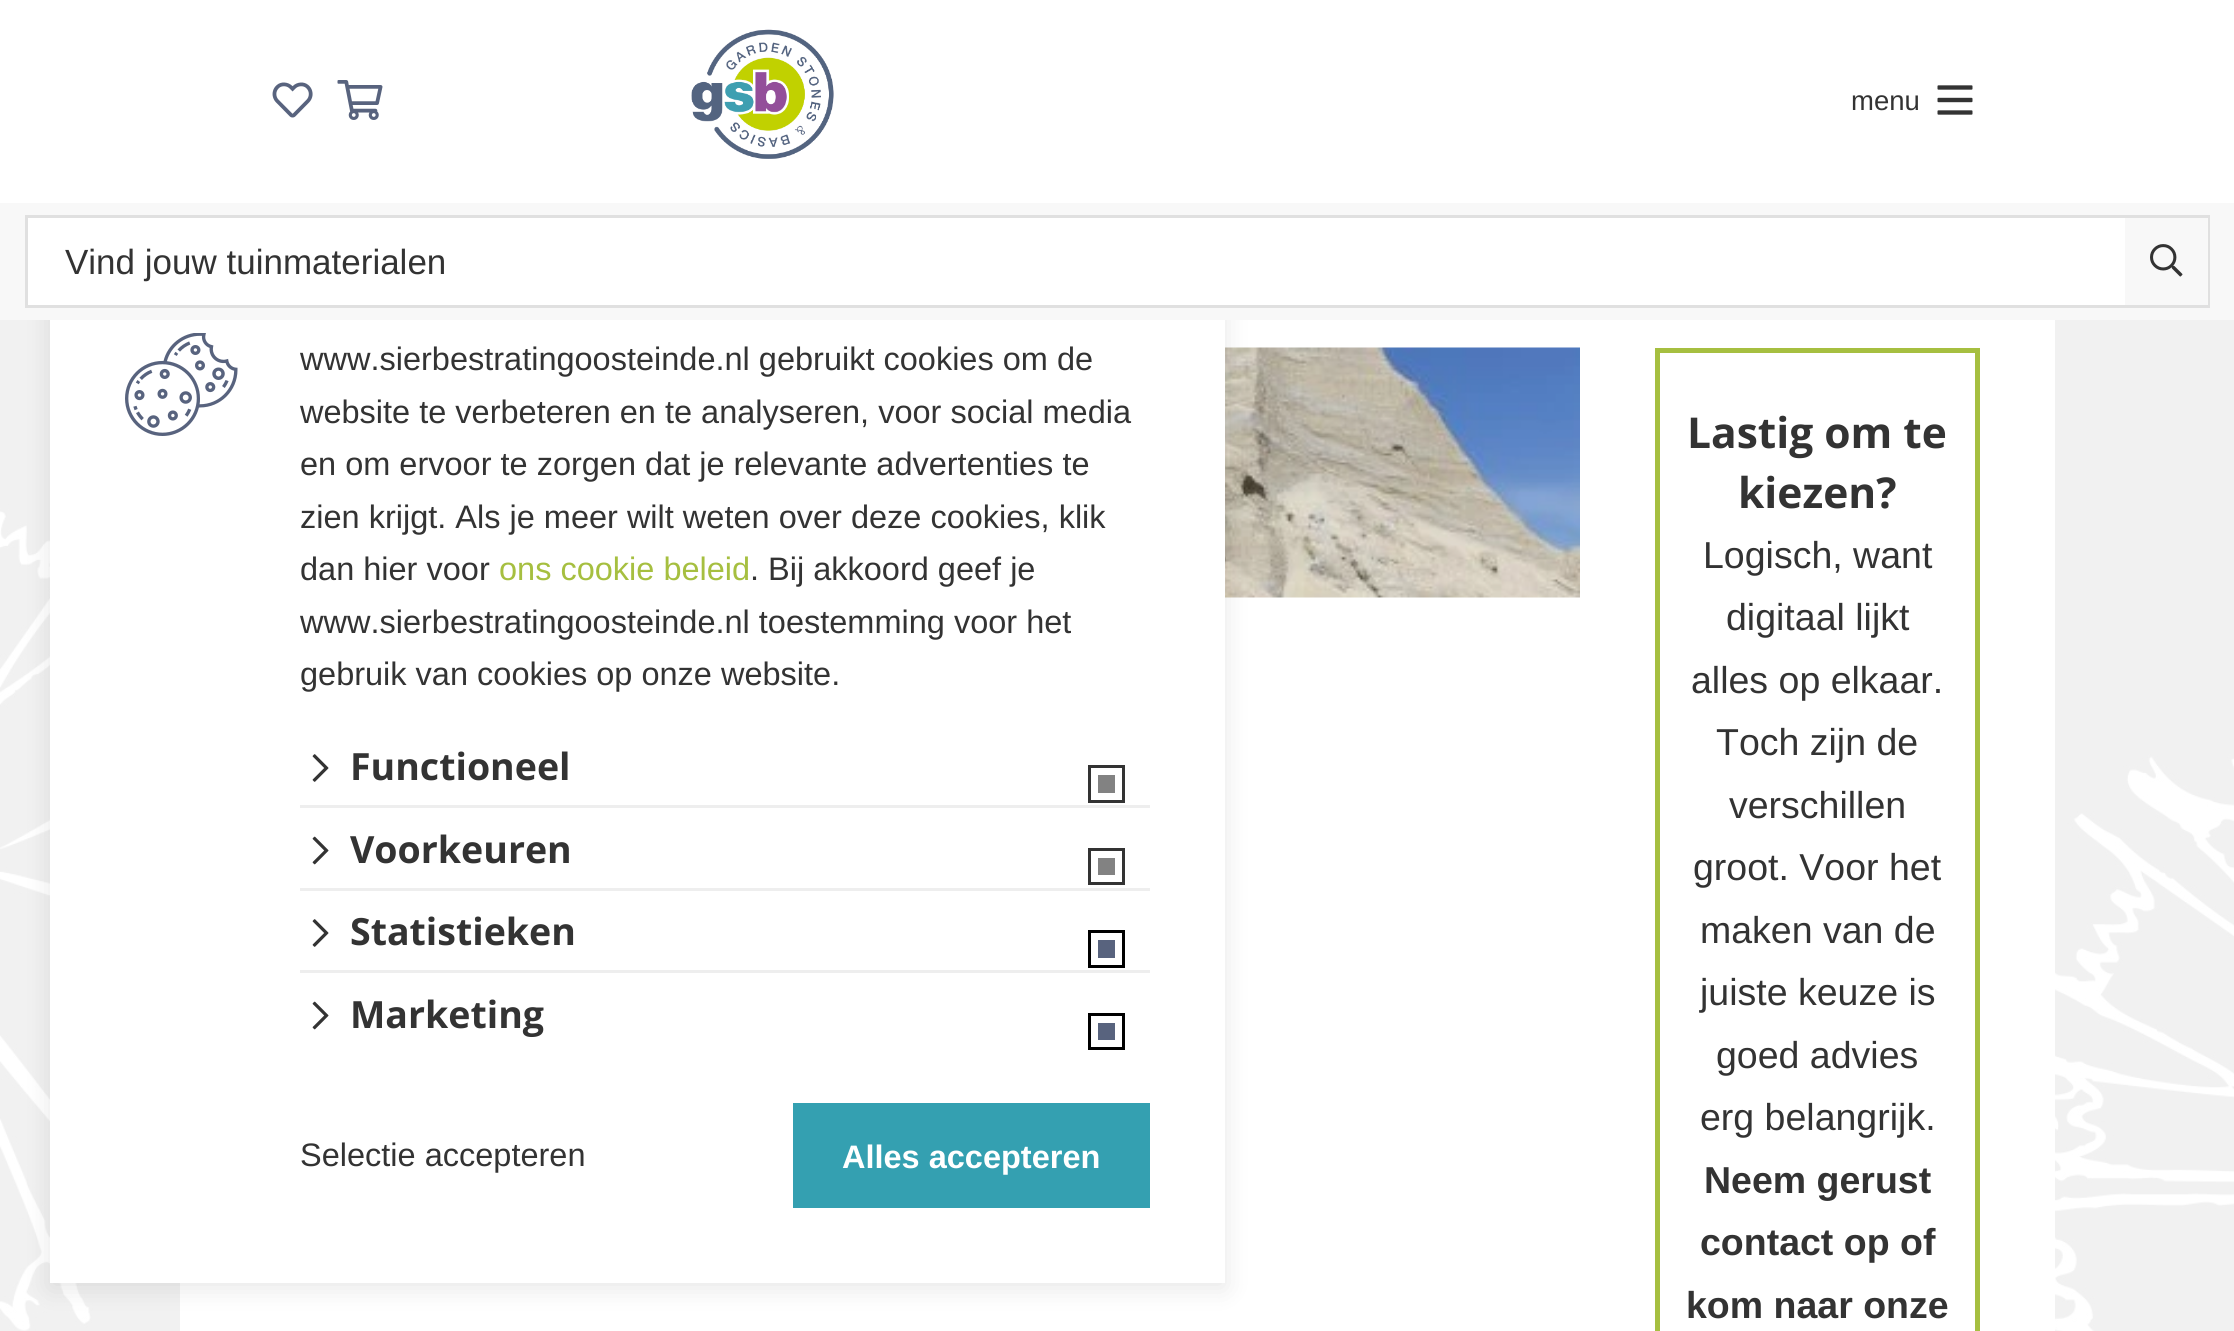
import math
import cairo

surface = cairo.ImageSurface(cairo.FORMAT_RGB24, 2234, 1331)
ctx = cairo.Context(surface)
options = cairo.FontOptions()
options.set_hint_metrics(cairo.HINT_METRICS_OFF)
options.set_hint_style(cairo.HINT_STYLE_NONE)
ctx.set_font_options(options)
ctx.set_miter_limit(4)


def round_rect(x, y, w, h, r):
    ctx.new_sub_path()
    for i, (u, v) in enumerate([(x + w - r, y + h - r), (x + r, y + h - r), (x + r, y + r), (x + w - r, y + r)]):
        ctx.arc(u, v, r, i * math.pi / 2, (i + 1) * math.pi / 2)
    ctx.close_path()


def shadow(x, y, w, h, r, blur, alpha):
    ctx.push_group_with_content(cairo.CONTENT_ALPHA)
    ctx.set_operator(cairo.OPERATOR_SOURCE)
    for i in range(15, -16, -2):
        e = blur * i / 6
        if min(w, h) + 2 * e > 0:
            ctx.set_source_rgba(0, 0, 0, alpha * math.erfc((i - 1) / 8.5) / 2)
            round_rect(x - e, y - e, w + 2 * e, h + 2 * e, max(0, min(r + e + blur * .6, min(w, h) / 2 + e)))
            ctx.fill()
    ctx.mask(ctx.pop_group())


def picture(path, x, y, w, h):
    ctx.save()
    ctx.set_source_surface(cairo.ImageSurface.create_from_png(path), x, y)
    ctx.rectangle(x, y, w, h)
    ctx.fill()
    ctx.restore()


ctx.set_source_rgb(1, 1, 1)
ctx.paint()
picture("img1.png", 0, 320, 2234, 1011)
picture("img2.png", 272, 82, 41, 36)
picture("img3.png", 337, 80, 46, 40)
picture("img4.png", 691, 29, 143, 130)
ctx.select_font_face("Liberation Sans")
ctx.set_font_size(27.5)
ctx.set_source_rgb(0.2, 0.2, 0.2)
ctx.move_to(1851, 110)
ctx.show_text("menu")
picture("img5.png", 1937, 85, 36, 30)
ctx.set_source_rgb(1, 1, 1)
ctx.rectangle(1225, 320, 830, 3)
ctx.fill()
ctx.rectangle(180, 323, 1875, 1008)
ctx.fill()
picture("img7.png", 1225, 347, 355, 251)
ctx.set_source_rgb(0, 0, 0)
shadow(50, 263, 1175, 1025, 0, 12.5, 0.1)
ctx.set_source_rgb(0.969, 0.969, 0.969)
ctx.rectangle(0, 203, 2234, 117)
ctx.fill()
ctx.set_source_rgb(1, 1, 1)
ctx.rectangle(28, 218, 2097, 87)
ctx.fill()
ctx.rectangle(26.5, 216.5, 2182, 90)
ctx.set_source_rgb(0.878, 0.878, 0.878)
ctx.set_line_width(3)
ctx.stroke()
ctx.set_font_size(35)
ctx.set_source_rgb(0.2, 0.2, 0.2)
ctx.move_to(65, 274)
ctx.show_text("Vind jouw tuinmaterialen")
ctx.set_source_rgb(0.973, 0.973, 0.969)
ctx.rectangle(2207, 218, 1, 87)
ctx.fill()
picture("img6.png", 2150, 244, 33, 33)
ctx.rectangle(1657.5, 350.5, 320, 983)
ctx.set_source_rgb(0.651, 0.749, 0.251)
ctx.set_line_width(5)
ctx.stroke()
ctx.select_font_face("Open Sans", cairo.FONT_SLANT_NORMAL, cairo.FONT_WEIGHT_BOLD)
ctx.set_font_size(42.5)
ctx.set_source_rgb(0.2, 0.2, 0.2)
ctx.move_to(1687, 448)
ctx.show_text("Lastig om te")
ctx.move_to(1738, 508)
ctx.show_text("kiezen?")
ctx.select_font_face("Liberation Sans")
ctx.set_font_size(37.5)
ctx.move_to(1703, 568)
ctx.show_text("Logisch, want")
ctx.move_to(1726, 630)
ctx.show_text("digitaal lijkt")
ctx.move_to(1691, 693)
ctx.show_text("alles op elkaar.")
ctx.move_to(1716, 755)
ctx.show_text("Toch zijn de")
ctx.move_to(1729, 818)
ctx.show_text("verschillen")
ctx.move_to(1693, 880)
ctx.show_text("groot. Voor het")
ctx.move_to(1700, 943)
ctx.show_text("maken van de")
ctx.move_to(1700, 1005)
ctx.show_text("juiste keuze is")
ctx.move_to(1716, 1068)
ctx.show_text("goed advies")
ctx.move_to(1700, 1130)
ctx.show_text("erg belangrijk.")
ctx.select_font_face("Liberation Sans", cairo.FONT_SLANT_NORMAL, cairo.FONT_WEIGHT_BOLD)
ctx.move_to(1704, 1193)
ctx.show_text("Neem gerust")
ctx.move_to(1700, 1255)
ctx.show_text("contact op of")
ctx.move_to(1686, 1318)
ctx.show_text("kom naar onze")
ctx.set_source_rgb(1, 1, 1)
ctx.rectangle(50, 320, 1175, 963)
ctx.fill()
picture("img8.png", 125, 333, 113, 103)
ctx.select_font_face("Liberation Sans")
ctx.set_font_size(32.5)
ctx.set_source_rgb(0.2, 0.2, 0.2)
ctx.move_to(300, 370)
ctx.show_text("www.sierbestratingoosteinde.nl gebruikt cookies om de")
ctx.move_to(300, 423)
ctx.show_text("website te verbeteren en te analyseren, voor social media")
ctx.move_to(300, 475)
ctx.show_text("en om ervoor te zorgen dat je relevante advertenties te")
ctx.move_to(300, 528)
ctx.show_text("zien krijgt. Als je meer wilt weten over deze cookies, klik")
ctx.move_to(300, 580)
ctx.show_text("dan hier voor")
ctx.set_source_rgb(0.651, 0.749, 0.251)
ctx.move_to(499, 580)
ctx.show_text("ons cookie beleid")
ctx.set_source_rgb(0.2, 0.2, 0.2)
ctx.move_to(750, 580)
ctx.show_text(". Bij akkoord geef je")
ctx.move_to(300, 633)
ctx.show_text("www.sierbestratingoosteinde.nl toestemming voor het")
ctx.move_to(300, 685)
ctx.show_text("gebruik van cookies op onze website.")
picture("img9.png", 312, 754, 17, 28)
ctx.select_font_face("Open Sans", cairo.FONT_SLANT_NORMAL, cairo.FONT_WEIGHT_BOLD)
ctx.set_font_size(37.5)
ctx.move_to(350, 780)
ctx.show_text("Functioneel")
ctx.rectangle(1089.5, 766.5, 34, 35)
ctx.set_line_width(3)
ctx.stroke()
ctx.set_source_rgb(0.51, 0.51, 0.51)
ctx.rectangle(1098, 775, 17, 18)
ctx.fill()
ctx.set_source_rgb(0.933, 0.933, 0.933)
ctx.rectangle(300, 805, 850, 3)
ctx.fill()
picture("img10.png", 312, 836, 17, 29)
ctx.set_source_rgb(0.2, 0.2, 0.2)
ctx.move_to(350, 863)
ctx.show_text("Voorkeuren")
ctx.rectangle(1089.5, 849.5, 34, 34)
ctx.stroke()
ctx.set_source_rgb(0.51, 0.51, 0.51)
ctx.rectangle(1098, 858, 17, 17)
ctx.fill()
ctx.set_source_rgb(0.933, 0.933, 0.933)
ctx.rectangle(300, 888, 850, 3)
ctx.fill()
picture("img9.png", 312, 919, 17, 28)
ctx.set_source_rgb(0.2, 0.2, 0.2)
ctx.move_to(350, 945)
ctx.show_text("Statistieken")
ctx.rectangle(1089.5, 931.5, 34, 35)
ctx.set_source_rgb(0, 0, 0)
ctx.stroke()
ctx.set_source_rgb(0.345, 0.388, 0.494)
ctx.rectangle(1098, 940, 17, 18)
ctx.fill()
ctx.set_source_rgb(0.933, 0.933, 0.933)
ctx.rectangle(300, 970, 850, 3)
ctx.fill()
picture("img10.png", 312, 1001, 17, 29)
ctx.set_source_rgb(0.2, 0.2, 0.2)
ctx.move_to(350, 1028)
ctx.show_text("Marketing")
ctx.rectangle(1089.5, 1014.5, 34, 34)
ctx.set_source_rgb(0, 0, 0)
ctx.stroke()
ctx.set_source_rgb(0.345, 0.388, 0.494)
ctx.rectangle(1098, 1023, 17, 17)
ctx.fill()
ctx.select_font_face("Liberation Sans")
ctx.set_font_size(32.5)
ctx.set_source_rgb(0.2, 0.2, 0.2)
ctx.move_to(300, 1166)
ctx.show_text("Selectie accepteren")
ctx.set_source_rgb(0.204, 0.627, 0.694)
ctx.rectangle(793, 1103, 357, 105)
ctx.fill()
ctx.select_font_face("Liberation Sans", cairo.FONT_SLANT_NORMAL, cairo.FONT_WEIGHT_BOLD)
ctx.set_source_rgb(1, 1, 1)
ctx.move_to(842, 1168)
ctx.show_text("Alles accepteren")
surface.write_to_png("page.png")
